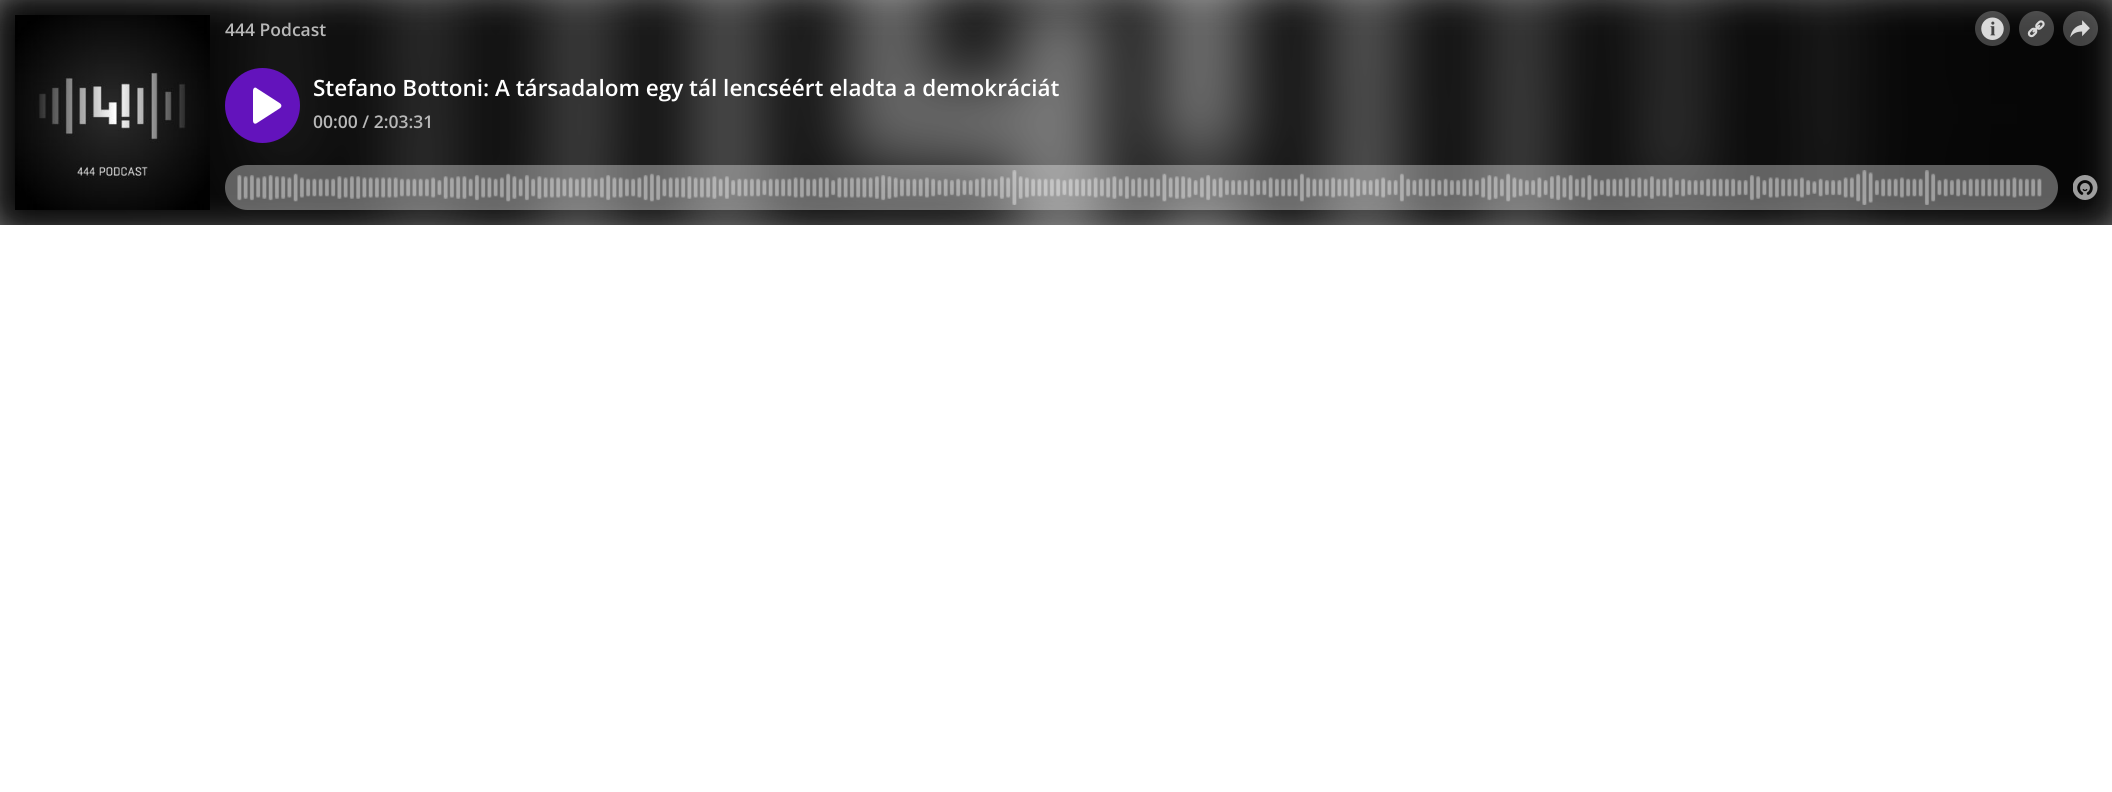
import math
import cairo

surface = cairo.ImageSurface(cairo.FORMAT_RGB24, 2112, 792)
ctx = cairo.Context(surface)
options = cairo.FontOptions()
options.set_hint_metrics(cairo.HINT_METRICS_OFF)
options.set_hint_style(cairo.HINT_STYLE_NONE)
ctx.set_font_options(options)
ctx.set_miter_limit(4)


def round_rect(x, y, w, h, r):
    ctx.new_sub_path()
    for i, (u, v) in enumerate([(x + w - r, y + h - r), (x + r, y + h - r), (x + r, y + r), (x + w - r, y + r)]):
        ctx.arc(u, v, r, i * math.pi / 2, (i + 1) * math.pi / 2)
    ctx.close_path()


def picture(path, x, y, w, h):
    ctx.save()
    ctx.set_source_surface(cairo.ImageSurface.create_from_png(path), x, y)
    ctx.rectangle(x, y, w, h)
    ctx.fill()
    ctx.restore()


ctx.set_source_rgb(1, 1, 1)
ctx.paint()
picture("img1.png", 0, 0, 2112, 225)
picture("img2.png", 15, 15, 195, 195)
ctx.select_font_face("Open Sans SemiBold")
ctx.set_font_size(17.5)
ctx.set_source_rgb(0.722, 0.722, 0.722)
ctx.move_to(225, 36)
ctx.show_text("444 Podcast")
ctx.set_source_rgba(1, 1, 1, 0.24)
ctx.new_path()
ctx.arc(1992.5, 28.5, 17.5, 0, 2 * math.pi)
ctx.fill()
picture("img3.png", 1981, 17, 23, 23)
ctx.arc(2036.5, 28.5, 17.5, 0, 2 * math.pi)
ctx.fill()
picture("img4.png", 2027, 20, 18, 18)
ctx.arc(2080.5, 28.5, 17.5, 0, 2 * math.pi)
ctx.fill()
picture("img5.png", 2070, 20, 20, 18)
ctx.set_source_rgb(0.388, 0.075, 0.737)
ctx.arc(262.5, 105.5, 37.5, 0, 2 * math.pi)
ctx.fill()
ctx.set_source_rgb(1, 1, 1)
ctx.new_path()
ctx.move_to(257, 123)
ctx.curve_to(255, 124.5, 253, 123.5, 253, 120.5)
ctx.line_to(253, 91)
ctx.curve_to(253, 88, 255, 86.5, 257, 88.5)
ctx.line_to(279.5, 103)
ctx.curve_to(282, 104.5, 282, 107, 279.5, 108.5)
ctx.close_path()
ctx.fill()
ctx.set_font_size(22.5)
ctx.move_to(313, 96)
ctx.show_text("Stefano Bottoni: A társadalom egy tál lencséért eladta a demokráciát")
ctx.set_font_size(17.5)
ctx.set_source_rgb(0.722, 0.722, 0.722)
ctx.move_to(313, 128)
ctx.show_text("00:00 / 2:03:31")
ctx.set_source_rgba(1, 1, 1, 0.35)
round_rect(225, 165, 1833, 45, 22.5)
ctx.fill()
picture("img6.png", 237, 170, 1274, 35)
picture("img7.png", 1512, 170, 530, 35)
picture("img8.png", 2073, 175, 25, 25)
surface.write_to_png("page.png")
